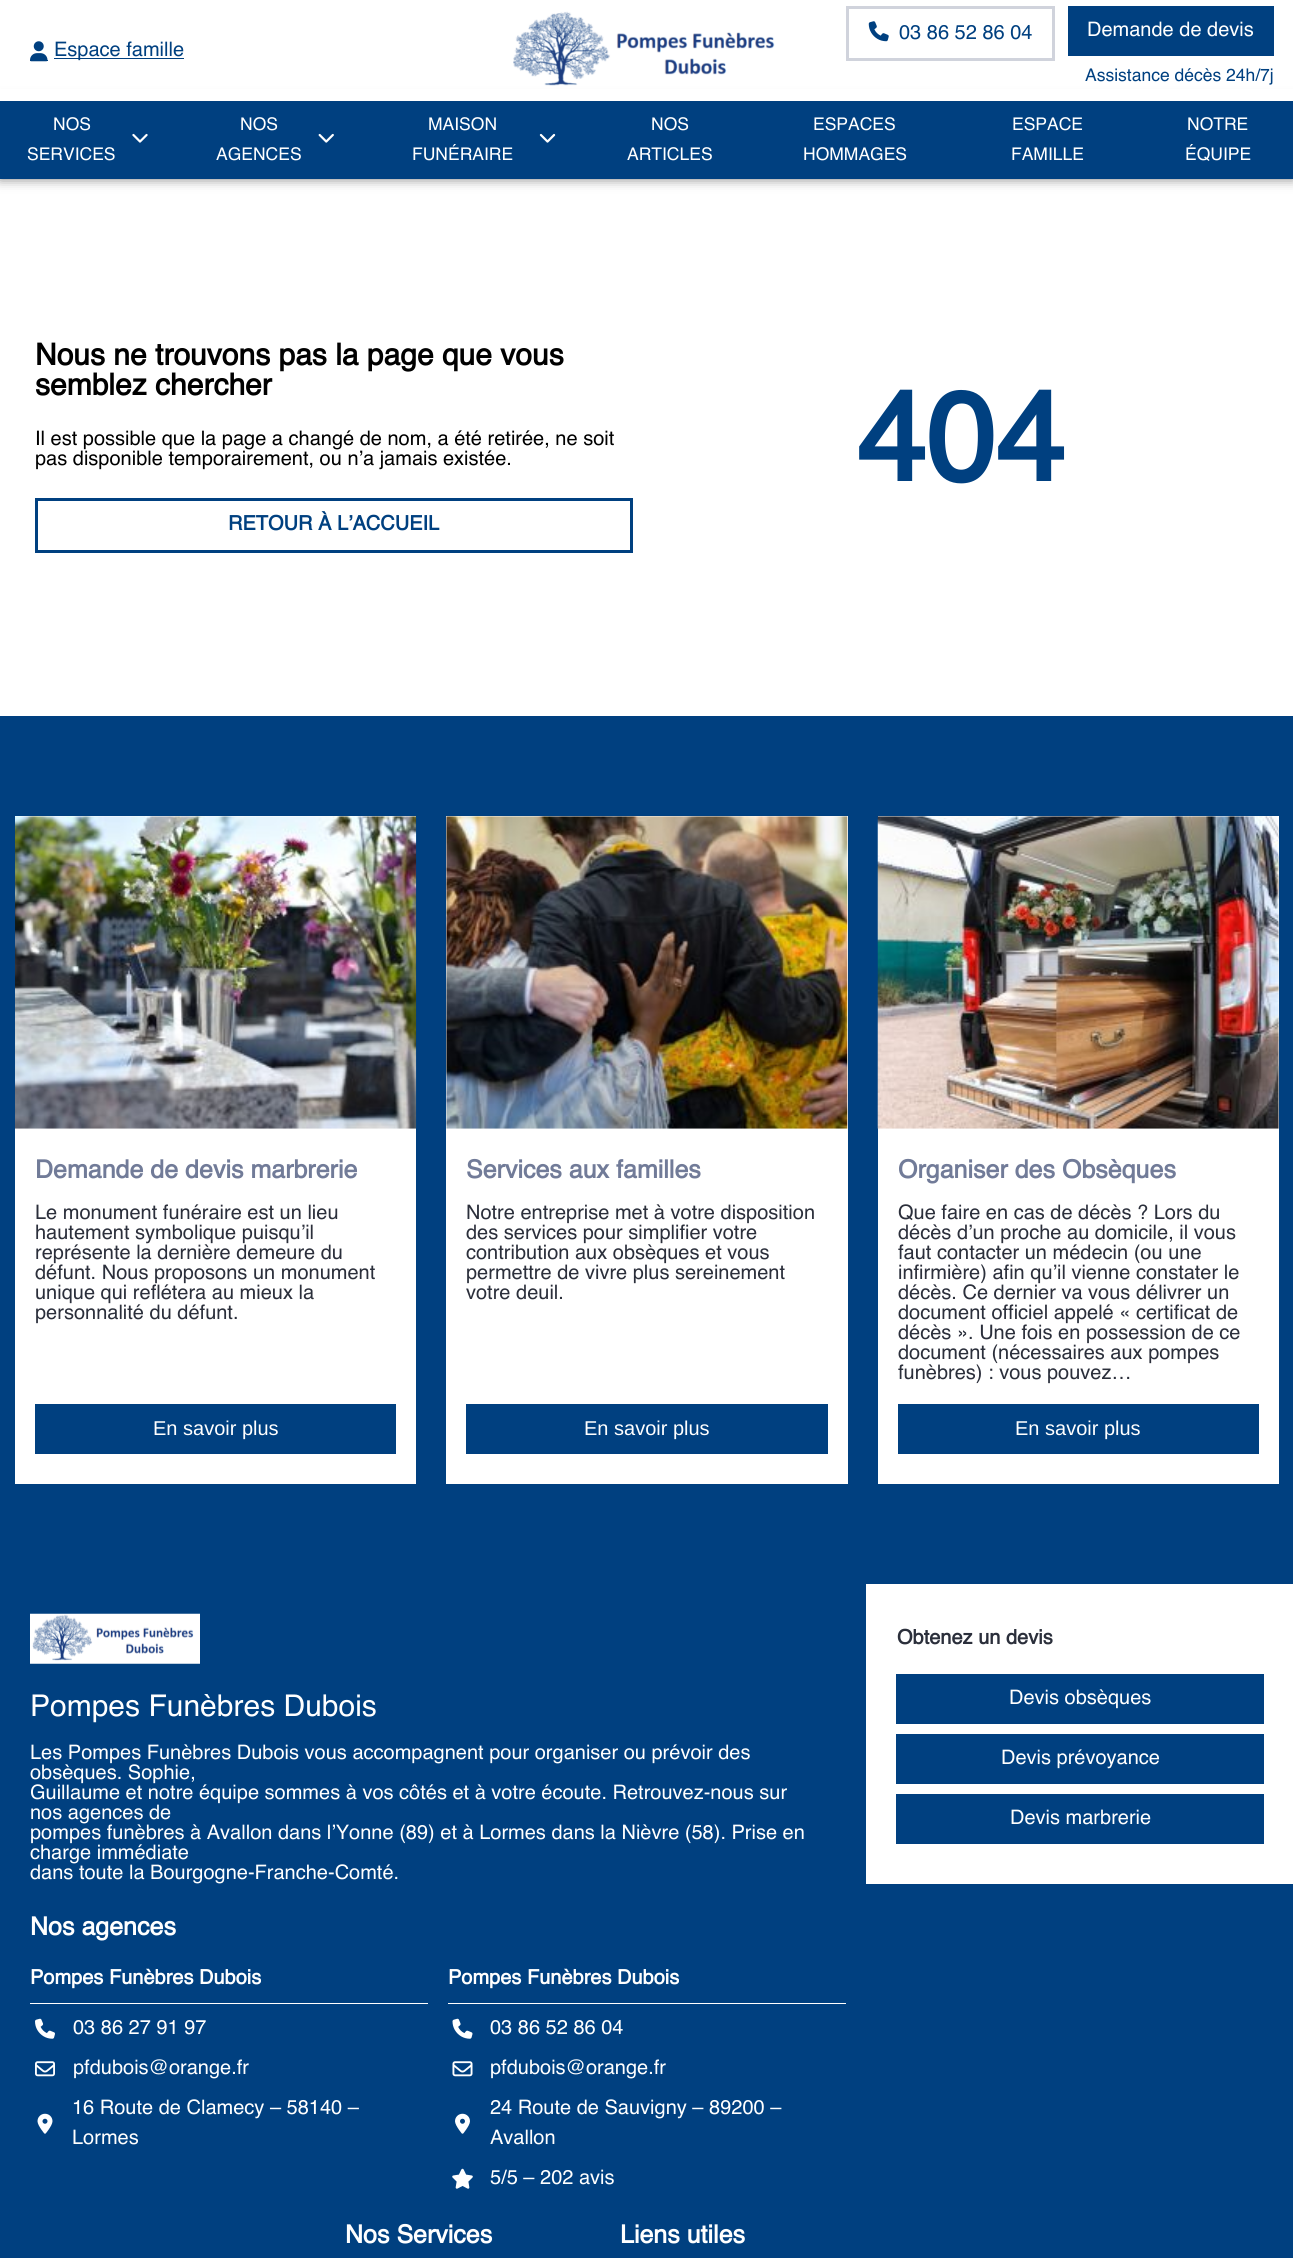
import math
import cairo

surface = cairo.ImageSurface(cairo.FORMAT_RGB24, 1293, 2258)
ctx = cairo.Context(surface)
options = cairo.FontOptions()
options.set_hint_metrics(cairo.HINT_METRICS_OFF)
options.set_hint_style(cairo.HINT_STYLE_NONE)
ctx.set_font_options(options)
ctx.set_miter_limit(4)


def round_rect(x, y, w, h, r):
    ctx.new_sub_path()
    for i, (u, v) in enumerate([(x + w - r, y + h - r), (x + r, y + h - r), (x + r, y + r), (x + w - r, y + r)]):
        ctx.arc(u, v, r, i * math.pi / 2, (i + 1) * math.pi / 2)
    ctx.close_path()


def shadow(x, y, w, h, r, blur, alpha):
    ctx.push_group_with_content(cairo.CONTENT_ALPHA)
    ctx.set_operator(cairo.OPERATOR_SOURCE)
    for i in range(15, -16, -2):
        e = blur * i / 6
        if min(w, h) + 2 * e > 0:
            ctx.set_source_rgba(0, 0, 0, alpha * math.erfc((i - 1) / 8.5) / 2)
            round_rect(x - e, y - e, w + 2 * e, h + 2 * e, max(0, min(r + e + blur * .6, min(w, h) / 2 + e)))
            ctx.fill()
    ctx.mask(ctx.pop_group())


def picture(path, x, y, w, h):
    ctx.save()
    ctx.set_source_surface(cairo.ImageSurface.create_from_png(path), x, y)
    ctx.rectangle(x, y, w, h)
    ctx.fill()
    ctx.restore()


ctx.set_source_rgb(1, 1, 1)
ctx.paint()
ctx.set_source_rgb(0, 0, 0)
shadow(0, 101, 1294, 78, 0, 6, 0.5)
ctx.set_source_rgb(1, 1, 1)
ctx.rectangle(0, 89, 1293, 12)
ctx.fill()
ctx.set_source_rgb(0, 0.251, 0.502)
ctx.rectangle(30, 60, 18, 1)
ctx.fill()
picture("img1.png", 30, 41, 18, 21)
ctx.rectangle(54, 58, 130, 1)
ctx.fill()
ctx.select_font_face("Helvetica")
ctx.set_font_size(20)
ctx.move_to(54, 56)
ctx.show_text("Espace famille")
picture("img2.png", 513, 11, 262, 75)
ctx.rectangle(847.5, 7.5, 206, 52)
ctx.set_source_rgb(0.816, 0.827, 0.863)
ctx.set_line_width(3)
ctx.stroke()
picture("img3.png", 868, 21, 21, 21)
ctx.set_source_rgb(0, 0.251, 0.502)
ctx.move_to(899, 39)
ctx.show_text("03 86 52 86 04")
ctx.rectangle(1068, 6, 206, 50)
ctx.fill()
ctx.set_source_rgb(1, 1, 1)
ctx.move_to(1087, 36)
ctx.show_text("Demande de devis")
ctx.set_font_size(17.5)
ctx.set_source_rgb(0, 0.251, 0.502)
ctx.move_to(1085, 81)
ctx.show_text("Assistance décès 24h/7j")
ctx.rectangle(0, 101, 1293, 78)
ctx.fill()
ctx.set_source_rgb(1, 1, 1)
ctx.move_to(53, 130)
ctx.show_text("NOS")
picture("img4.png", 132, 133, 16, 10)
ctx.move_to(27, 160)
ctx.show_text("SERVICES")
ctx.move_to(240, 130)
ctx.show_text("NOS")
picture("img5.png", 318, 133, 16, 10)
ctx.move_to(216, 160)
ctx.show_text("AGENCES")
ctx.move_to(428, 130)
ctx.show_text("MAISON")
picture("img6.png", 539, 133, 17, 10)
ctx.move_to(412, 160)
ctx.show_text("FUNÉRAIRE")
ctx.move_to(651, 130)
ctx.show_text("NOS")
ctx.move_to(627, 160)
ctx.show_text("ARTICLES")
ctx.move_to(813, 130)
ctx.show_text("ESPACES")
ctx.move_to(803, 160)
ctx.show_text("HOMMAGES")
ctx.move_to(1012, 130)
ctx.show_text("ESPACE")
ctx.move_to(1011, 160)
ctx.show_text("FAMILLE")
ctx.move_to(1187, 130)
ctx.show_text("NOTRE")
ctx.move_to(1185, 160)
ctx.show_text("ÉQUIPE")
ctx.select_font_face("Helvetica", cairo.FONT_SLANT_NORMAL, cairo.FONT_WEIGHT_BOLD)
ctx.set_font_size(30)
ctx.set_source_rgb(0, 0, 0)
ctx.move_to(35, 365)
ctx.show_text("Nous ne trouvons pas la page que vous")
ctx.move_to(35, 395)
ctx.show_text("semblez chercher")
ctx.select_font_face("Helvetica")
ctx.set_font_size(20)
ctx.move_to(35, 445)
ctx.show_text("Il est possible que la page a changé de nom, a été retirée, ne soit")
ctx.move_to(35, 465)
ctx.show_text("pas disponible temporairement, ou n’a jamais existée.")
ctx.rectangle(36.5, 499.5, 595, 52)
ctx.set_source_rgb(0, 0.251, 0.502)
ctx.stroke()
ctx.select_font_face("Helvetica", cairo.FONT_SLANT_NORMAL, cairo.FONT_WEIGHT_BOLD)
ctx.move_to(228, 530)
ctx.show_text("RETOUR À L’ACCUEIL")
ctx.set_font_size(125)
ctx.move_to(856, 481)
ctx.show_text("404")
ctx.rectangle(0, 716, 1293, 1542)
ctx.fill()
ctx.set_source_rgb(1, 1, 1)
ctx.rectangle(15, 816, 401, 668)
ctx.fill()
picture("img7.png", 15, 816, 402, 313)
ctx.set_font_size(25)
ctx.set_source_rgb(0.443, 0.482, 0.596)
ctx.move_to(35, 1178)
ctx.show_text("Demande de devis marbrerie")
ctx.select_font_face("Helvetica")
ctx.set_font_size(20)
ctx.set_source_rgb(0.169, 0.184, 0.231)
ctx.move_to(35, 1219)
ctx.show_text("Le monument funéraire est un lieu")
ctx.move_to(35, 1239)
ctx.show_text("hautement symbolique puisqu’il")
ctx.move_to(35, 1259)
ctx.show_text("représente la dernière demeure du")
ctx.move_to(35, 1279)
ctx.show_text("défunt. Nous proposons un monument")
ctx.move_to(35, 1299)
ctx.show_text("unique qui reflétera au mieux la")
ctx.move_to(35, 1319)
ctx.show_text("personnalité du défunt.")
ctx.set_source_rgb(0, 0.251, 0.502)
ctx.rectangle(35, 1404, 361, 50)
ctx.fill()
ctx.select_font_face("Liberation Sans")
ctx.set_source_rgb(1, 1, 1)
ctx.move_to(153, 1435)
ctx.show_text("En savoir plus")
ctx.rectangle(446, 816, 402, 668)
ctx.fill()
picture("img8.png", 446, 816, 402, 313)
ctx.select_font_face("Helvetica", cairo.FONT_SLANT_NORMAL, cairo.FONT_WEIGHT_BOLD)
ctx.set_font_size(25)
ctx.set_source_rgb(0.443, 0.482, 0.596)
ctx.move_to(466, 1178)
ctx.show_text("Services aux familles")
ctx.select_font_face("Helvetica")
ctx.set_font_size(20)
ctx.set_source_rgb(0.169, 0.184, 0.231)
ctx.move_to(466, 1219)
ctx.show_text("Notre entreprise met à votre disposition")
ctx.move_to(466, 1239)
ctx.show_text("des services pour simplifier votre")
ctx.move_to(466, 1259)
ctx.show_text("contribution aux obsèques et vous")
ctx.move_to(466, 1279)
ctx.show_text("permettre de vivre plus sereinement")
ctx.move_to(466, 1299)
ctx.show_text("votre deuil.")
ctx.set_source_rgb(0, 0.251, 0.502)
ctx.rectangle(466, 1404, 362, 50)
ctx.fill()
ctx.select_font_face("Liberation Sans")
ctx.set_source_rgb(1, 1, 1)
ctx.move_to(584, 1435)
ctx.show_text("En savoir plus")
ctx.rectangle(878, 816, 401, 668)
ctx.fill()
picture("img9.png", 877, 816, 402, 313)
ctx.select_font_face("Helvetica", cairo.FONT_SLANT_NORMAL, cairo.FONT_WEIGHT_BOLD)
ctx.set_font_size(25)
ctx.set_source_rgb(0.443, 0.482, 0.596)
ctx.move_to(898, 1178)
ctx.show_text("Organiser des Obsèques")
ctx.select_font_face("Helvetica")
ctx.set_font_size(20)
ctx.set_source_rgb(0.169, 0.184, 0.231)
ctx.move_to(898, 1219)
ctx.show_text("Que faire en cas de décès ? Lors du")
ctx.move_to(898, 1239)
ctx.show_text("décès d’un proche au domicile, il vous")
ctx.move_to(898, 1259)
ctx.show_text("faut contacter un médecin (ou une")
ctx.move_to(898, 1279)
ctx.show_text("infirmière) afin qu’il vienne constater le")
ctx.move_to(898, 1299)
ctx.show_text("décès. Ce dernier va vous délivrer un")
ctx.move_to(898, 1319)
ctx.show_text("document officiel appelé « certificat de")
ctx.move_to(898, 1339)
ctx.show_text("décès ». Une fois en possession de ce")
ctx.move_to(898, 1359)
ctx.show_text("document (nécessaires aux pompes")
ctx.move_to(898, 1379)
ctx.show_text("funèbres) : vous pouvez…")
ctx.set_source_rgb(0, 0.251, 0.502)
ctx.rectangle(898, 1404, 361, 50)
ctx.fill()
ctx.select_font_face("Liberation Sans")
ctx.set_source_rgb(1, 1, 1)
ctx.move_to(1015, 1435)
ctx.show_text("En savoir plus")
picture("img10.png", 30, 1613, 170, 51)
ctx.select_font_face("Helvetica")
ctx.set_font_size(30)
ctx.move_to(30, 1716)
ctx.show_text("Pompes Funèbres Dubois")
ctx.set_font_size(20)
ctx.move_to(30, 1759)
ctx.show_text("Les Pompes Funèbres Dubois vous accompagnent pour organiser ou prévoir des")
ctx.move_to(30, 1779)
ctx.show_text("obsèques. Sophie,")
ctx.move_to(30, 1799)
ctx.show_text("Guillaume et notre équipe sommes à vos côtés et à votre écoute. Retrouvez-nous sur")
ctx.move_to(30, 1819)
ctx.show_text("nos agences de")
ctx.move_to(30, 1839)
ctx.show_text("pompes funèbres à Avallon dans l’Yonne (89) et à Lormes dans la Nièvre (58). Prise en")
ctx.move_to(30, 1859)
ctx.show_text("charge immédiate")
ctx.move_to(30, 1879)
ctx.show_text("dans toute la Bourgogne-Franche-Comté.")
ctx.rectangle(866, 1584, 427, 300)
ctx.fill()
ctx.select_font_face("Helvetica", cairo.FONT_SLANT_NORMAL, cairo.FONT_WEIGHT_BOLD)
ctx.set_source_rgb(0.169, 0.184, 0.231)
ctx.move_to(897, 1644)
ctx.show_text("Obtenez un devis")
ctx.set_source_rgb(0, 0.251, 0.502)
ctx.rectangle(896, 1674, 368, 50)
ctx.fill()
ctx.select_font_face("Helvetica")
ctx.set_source_rgb(1, 1, 1)
ctx.move_to(1009, 1704)
ctx.show_text("Devis obsèques")
ctx.set_source_rgb(0, 0.251, 0.502)
ctx.rectangle(896, 1734, 368, 50)
ctx.fill()
ctx.set_source_rgb(1, 1, 1)
ctx.move_to(1001, 1764)
ctx.show_text("Devis prévoyance")
ctx.set_source_rgb(0, 0.251, 0.502)
ctx.rectangle(896, 1794, 368, 50)
ctx.fill()
ctx.set_source_rgb(1, 1, 1)
ctx.move_to(1010, 1824)
ctx.show_text("Devis marbrerie")
ctx.select_font_face("Helvetica", cairo.FONT_SLANT_NORMAL, cairo.FONT_WEIGHT_BOLD)
ctx.set_font_size(25)
ctx.move_to(30, 1935)
ctx.show_text("Nos agences")
ctx.rectangle(30, 2003, 398, 1)
ctx.fill()
ctx.set_font_size(20)
ctx.move_to(30, 1984)
ctx.show_text("Pompes Funèbres Dubois")
picture("img11.png", 35, 2018, 20, 21)
ctx.select_font_face("Helvetica")
ctx.move_to(73, 2034)
ctx.show_text("03 86 27 91 97")
picture("img12.png", 35, 2061, 20, 16)
ctx.move_to(73, 2074)
ctx.show_text("pfdubois@orange.fr")
picture("img13.png", 37, 2113, 16, 21)
ctx.move_to(72, 2114)
ctx.show_text("16 Route de Clamecy – 58140 –")
ctx.move_to(72, 2144)
ctx.show_text("Lormes")
ctx.rectangle(448, 2003, 398, 1)
ctx.fill()
ctx.select_font_face("Helvetica", cairo.FONT_SLANT_NORMAL, cairo.FONT_WEIGHT_BOLD)
ctx.move_to(448, 1984)
ctx.show_text("Pompes Funèbres Dubois")
picture("img14.png", 452, 2018, 21, 21)
ctx.select_font_face("Helvetica")
ctx.move_to(490, 2034)
ctx.show_text("03 86 52 86 04")
picture("img15.png", 452, 2061, 21, 16)
ctx.move_to(490, 2074)
ctx.show_text("pfdubois@orange.fr")
picture("img16.png", 455, 2113, 15, 21)
ctx.move_to(490, 2114)
ctx.show_text("24 Route de Sauvigny – 89200 –")
ctx.move_to(490, 2144)
ctx.show_text("Avallon")
picture("img17.png", 452, 2168, 21, 21)
ctx.move_to(490, 2184)
ctx.show_text("5/5 – 202 avis")
ctx.select_font_face("Helvetica", cairo.FONT_SLANT_NORMAL, cairo.FONT_WEIGHT_BOLD)
ctx.set_font_size(25)
ctx.move_to(345, 2243)
ctx.show_text("Nos Services")
ctx.move_to(620, 2243)
ctx.show_text("Liens utiles")
surface.write_to_png("page.png")
